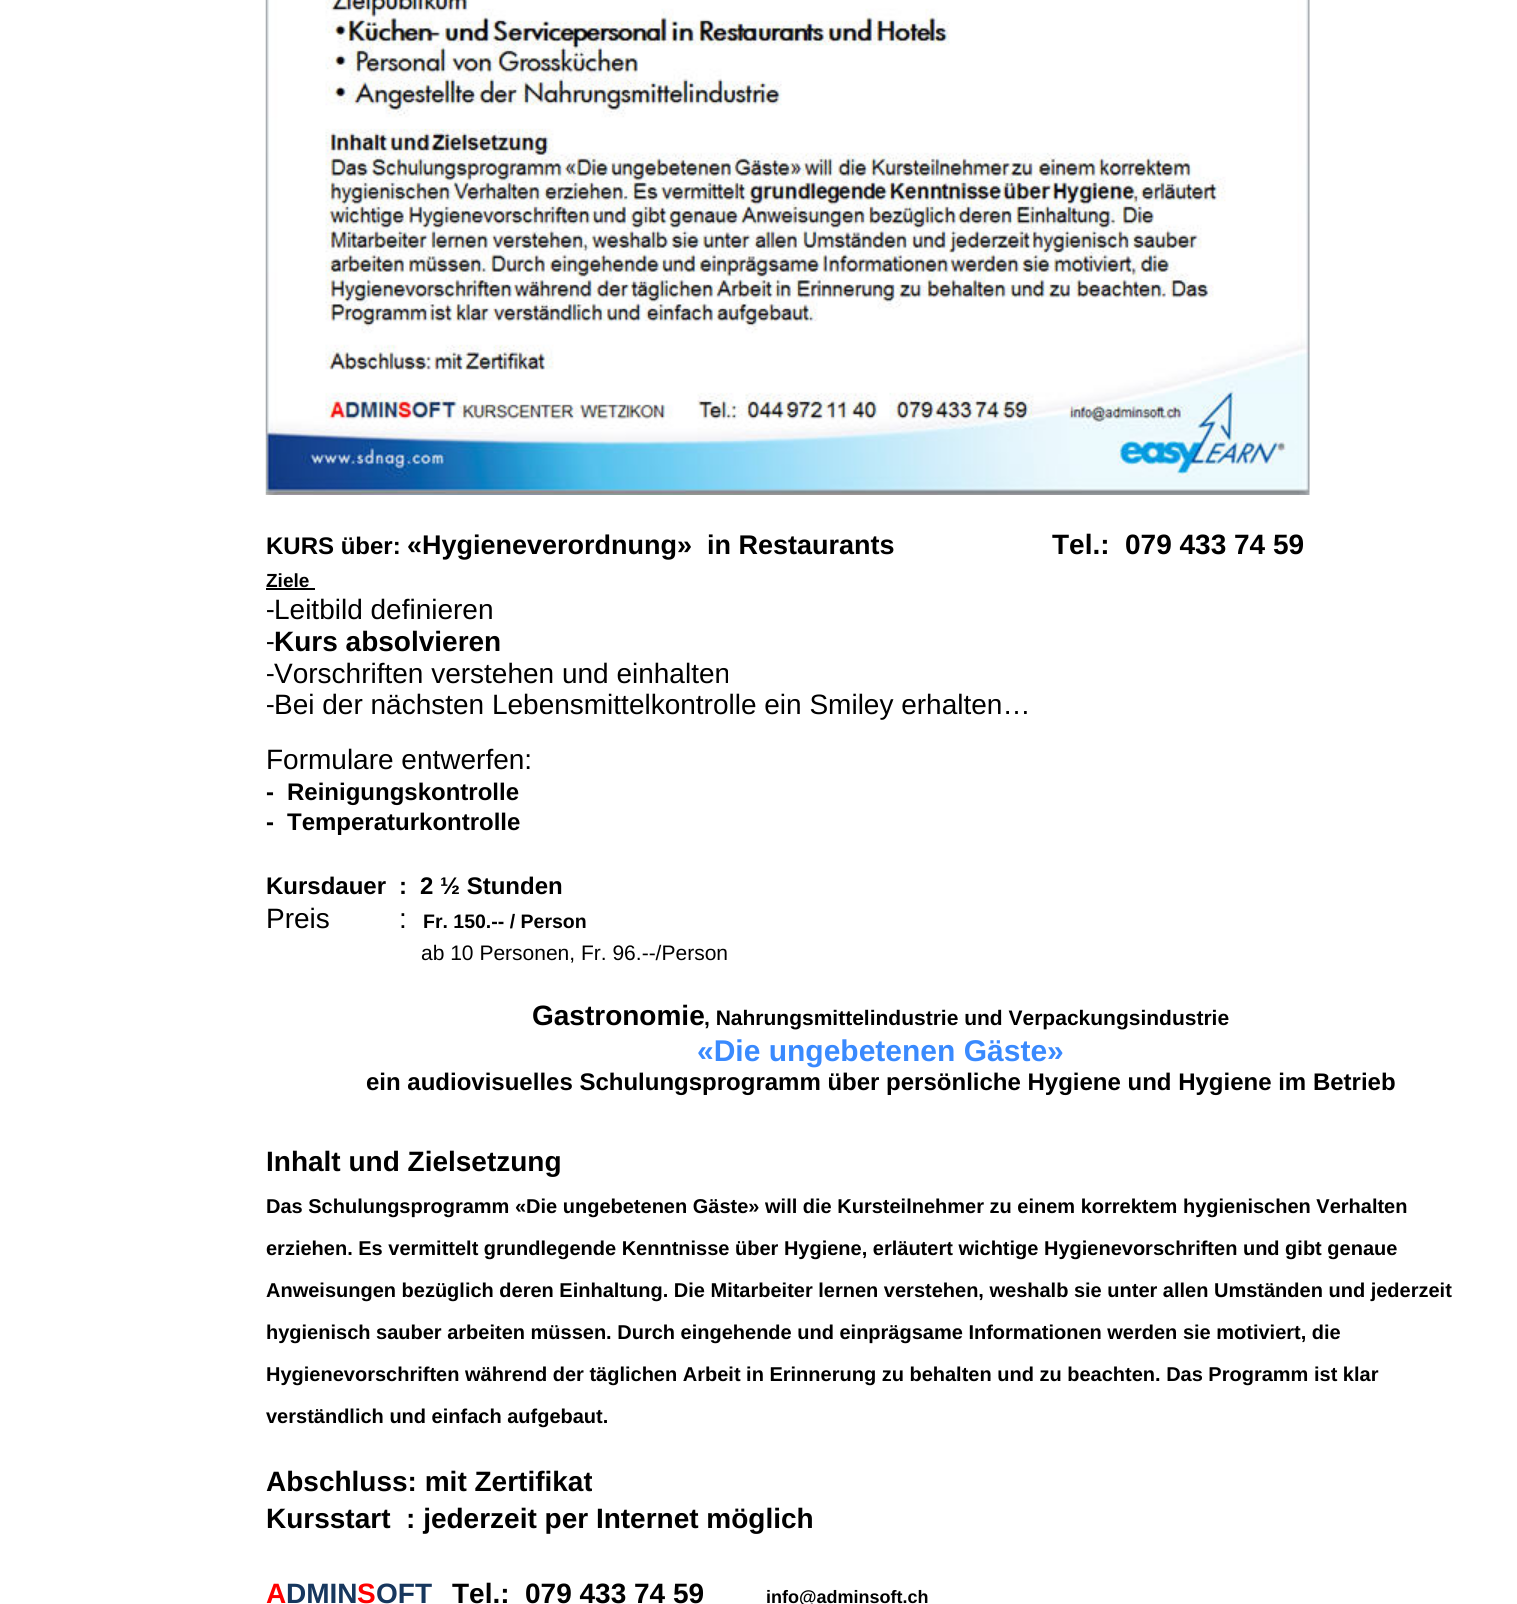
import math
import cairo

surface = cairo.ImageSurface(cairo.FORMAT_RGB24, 1517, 1604)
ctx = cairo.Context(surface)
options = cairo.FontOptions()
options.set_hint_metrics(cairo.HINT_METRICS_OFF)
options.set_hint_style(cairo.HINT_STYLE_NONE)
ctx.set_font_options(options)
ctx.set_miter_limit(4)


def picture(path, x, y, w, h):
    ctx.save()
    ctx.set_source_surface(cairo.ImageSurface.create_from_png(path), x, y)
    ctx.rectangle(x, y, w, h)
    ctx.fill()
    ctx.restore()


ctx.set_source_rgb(1, 1, 1)
ctx.paint()
picture("img1.png", 265, 0, 1045, 495)
ctx.select_font_face("Liberation Sans", cairo.FONT_SLANT_NORMAL, cairo.FONT_WEIGHT_BOLD)
ctx.set_font_size(24)
ctx.set_source_rgb(0, 0, 0)
ctx.move_to(266, 554)
ctx.show_text("KURS über:")
ctx.set_font_size(27)
ctx.move_to(407, 554)
ctx.show_text("«Hygieneverordnung»")
ctx.move_to(707, 554)
ctx.show_text("in Restaurants")
ctx.set_font_size(28)
ctx.move_to(1052, 554)
ctx.show_text("Tel.:")
ctx.move_to(1125, 554)
ctx.show_text("079 433 74 59")
ctx.set_font_size(19)
ctx.move_to(266, 587)
ctx.show_text("Ziele")
ctx.rectangle(266, 588, 49, 2)
ctx.fill()
ctx.select_font_face("Carlito")
ctx.set_font_size(28)
ctx.move_to(266, 619)
ctx.show_text("-")
ctx.select_font_face("Liberation Sans")
ctx.move_to(274, 619)
ctx.show_text("Leitbild definieren")
ctx.select_font_face("Carlito")
ctx.move_to(266, 651)
ctx.show_text("-")
ctx.select_font_face("Liberation Sans", cairo.FONT_SLANT_NORMAL, cairo.FONT_WEIGHT_BOLD)
ctx.move_to(274, 651)
ctx.show_text("Kurs absolvieren")
ctx.select_font_face("Carlito")
ctx.move_to(266, 683)
ctx.show_text("-")
ctx.select_font_face("Liberation Sans")
ctx.move_to(274, 683)
ctx.show_text("Vorschriften verstehen und einhalten")
ctx.select_font_face("Carlito")
ctx.move_to(266, 714)
ctx.show_text("-")
ctx.select_font_face("Liberation Sans")
ctx.move_to(274, 714)
ctx.show_text("Bei der nächsten Lebensmittelkontrolle ein Smiley erhalten…")
ctx.move_to(266, 769)
ctx.show_text("Formulare entwerfen:")
ctx.select_font_face("Liberation Sans", cairo.FONT_SLANT_NORMAL, cairo.FONT_WEIGHT_BOLD)
ctx.set_font_size(24)
ctx.move_to(266, 800)
ctx.show_text("-")
ctx.move_to(287, 800)
ctx.show_text("Reinigungskontrolle")
ctx.move_to(266, 830)
ctx.show_text("-")
ctx.move_to(287, 830)
ctx.show_text("Temperaturkontrolle")
ctx.move_to(266, 894)
ctx.show_text("Kursdauer")
ctx.move_to(399, 894)
ctx.show_text(":")
ctx.move_to(420, 894)
ctx.show_text("2 ½ Stunden")
ctx.select_font_face("Liberation Sans")
ctx.set_font_size(28)
ctx.move_to(266, 928)
ctx.show_text("Preis")
ctx.move_to(399, 928)
ctx.show_text(":")
ctx.select_font_face("Liberation Sans", cairo.FONT_SLANT_NORMAL, cairo.FONT_WEIGHT_BOLD)
ctx.set_font_size(19.5)
ctx.move_to(423, 928)
ctx.show_text("Fr. 150.-- / Person")
ctx.select_font_face("Liberation Sans")
ctx.set_font_size(21)
ctx.move_to(421, 960)
ctx.show_text("ab 10 Personen, Fr. 96.--/Person")
ctx.select_font_face("Liberation Sans", cairo.FONT_SLANT_NORMAL, cairo.FONT_WEIGHT_BOLD)
ctx.set_font_size(28)
ctx.move_to(532, 1025)
ctx.show_text("Gastronomie")
ctx.set_font_size(21)
ctx.move_to(704, 1025)
ctx.show_text(", Nahrungsmittelindustrie und Verpackungsindustrie")
ctx.set_font_size(30)
ctx.set_source_rgb(0.227, 0.541, 0.996)
ctx.move_to(697, 1061)
ctx.show_text("«Die ungebetenen Gäste»")
ctx.set_font_size(24)
ctx.set_source_rgb(0, 0, 0)
ctx.move_to(366, 1090)
ctx.show_text("ein audiovisuelles Schulungsprogramm über persönliche Hygiene und Hygiene im Betrieb")
ctx.set_font_size(28)
ctx.move_to(266, 1171)
ctx.show_text("Inhalt und Zielsetzung")
ctx.set_font_size(20)
ctx.move_to(266, 1213)
ctx.show_text("Das Schulungsprogramm «Die ungebetenen Gäste» will die Kursteilnehmer zu einem korrektem hygienischen Verhalten")
ctx.move_to(266, 1255)
ctx.show_text("erziehen. Es vermittelt grundlegende Kenntnisse über Hygiene, erläutert wichtige Hygienevorschriften und gibt genaue")
ctx.move_to(266, 1297)
ctx.show_text("Anweisungen bezüglich deren Einhaltung. Die Mitarbeiter lernen verstehen, weshalb sie unter allen Umständen und jederzeit")
ctx.move_to(266, 1339)
ctx.show_text("hygienisch sauber arbeiten müssen. Durch eingehende und einprägsame Informationen werden sie motiviert, die")
ctx.move_to(266, 1381)
ctx.show_text("Hygienevorschriften während der täglichen Arbeit in Erinnerung zu behalten und zu beachten. Das Programm ist klar")
ctx.move_to(266, 1423)
ctx.show_text("verständlich und einfach aufgebaut.")
ctx.set_font_size(28)
ctx.move_to(266, 1491)
ctx.show_text("Abschluss: mit Zertifikat")
ctx.move_to(266, 1528)
ctx.show_text("Kursstart  : jederzeit per Internet möglich")
ctx.set_source_rgb(1, 0, 0)
ctx.move_to(266, 1603)
ctx.show_text("A")
ctx.set_source_rgb(0.09, 0.216, 0.369)
ctx.move_to(286, 1603)
ctx.show_text("DMIN")
ctx.set_source_rgb(1, 0, 0)
ctx.move_to(357, 1603)
ctx.show_text("S")
ctx.set_source_rgb(0.09, 0.216, 0.369)
ctx.move_to(376, 1603)
ctx.show_text("OFT")
ctx.set_source_rgb(0, 0, 0)
ctx.move_to(452, 1603)
ctx.show_text("Tel.:")
ctx.move_to(525, 1603)
ctx.show_text("079 433 74 59")
ctx.set_font_size(18)
ctx.move_to(766, 1603)
ctx.show_text("info@adminsoft.ch")
surface.write_to_png("page.png")
